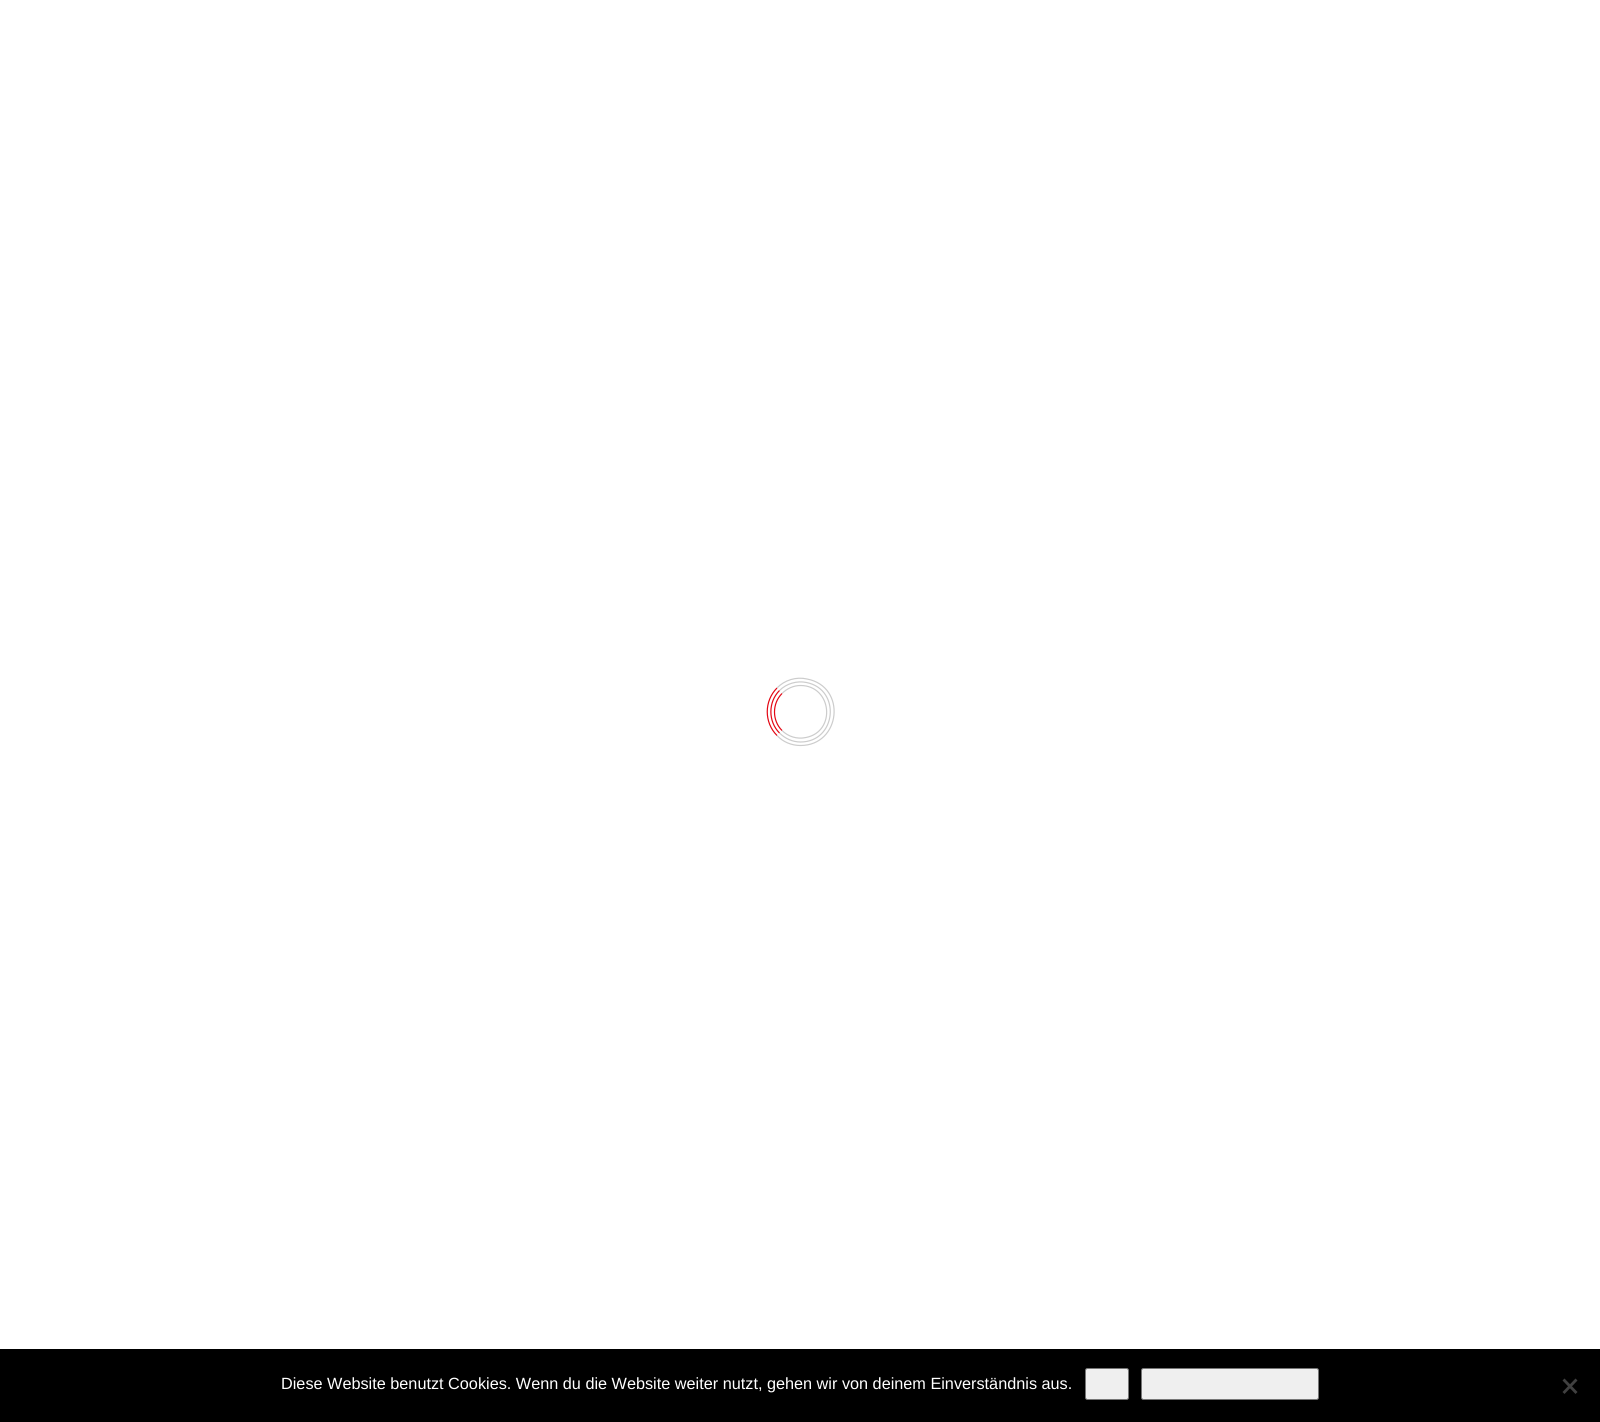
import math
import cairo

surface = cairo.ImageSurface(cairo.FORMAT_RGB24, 1600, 1422)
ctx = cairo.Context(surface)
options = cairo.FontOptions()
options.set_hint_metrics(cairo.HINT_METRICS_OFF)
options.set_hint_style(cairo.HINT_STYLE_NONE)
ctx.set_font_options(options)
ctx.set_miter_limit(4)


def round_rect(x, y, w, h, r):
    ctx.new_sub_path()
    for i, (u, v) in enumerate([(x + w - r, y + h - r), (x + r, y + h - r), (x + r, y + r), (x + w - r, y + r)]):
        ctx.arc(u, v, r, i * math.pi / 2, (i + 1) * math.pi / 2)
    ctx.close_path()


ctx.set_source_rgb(1, 1, 1)
ctx.paint()
ctx.new_path()
ctx.move_to(779.5, 690.5)
ctx.curve_to(786.5, 683.5, 797, 680.5, 806.5, 682.5)
ctx.curve_to(841.5, 689.5, 836.5, 742, 800.5, 742)
ctx.curve_to(792.5, 742, 785, 738.5, 779.5, 733)
ctx.set_source_rgb(0.8, 0.8, 0.8)
ctx.set_line_width(1.2)
ctx.stroke()
ctx.new_path()
ctx.move_to(779.5, 733)
ctx.curve_to(768, 721.5, 768, 702, 779.5, 690.5)
ctx.set_source_rgb(0.89, 0.024, 0.075)
ctx.stroke()
ctx.new_path()
ctx.move_to(782, 693.5)
ctx.curve_to(787, 688.5, 793.5, 685.5, 800.5, 685.5)
ctx.curve_to(832, 685.5, 836.5, 731.5, 806, 737.5)
ctx.curve_to(797, 739.5, 788, 736.5, 782, 730.5)
ctx.set_source_rgb(0.8, 0.8, 0.8)
ctx.stroke()
ctx.new_path()
ctx.move_to(782, 730.5)
ctx.curve_to(772, 720.5, 772, 703.5, 782, 693.5)
ctx.set_source_rgb(0.89, 0.024, 0.075)
ctx.stroke()
ctx.new_path()
ctx.move_to(777, 688)
ctx.curve_to(784.5, 680, 796.5, 676.5, 807, 679)
ctx.curve_to(847, 686.5, 841, 745.5, 800.5, 745.5)
ctx.curve_to(791.5, 745.5, 783, 742, 777, 735.5)
ctx.set_source_rgb(0.8, 0.8, 0.8)
ctx.stroke()
ctx.new_path()
ctx.move_to(777, 735.5)
ctx.curve_to(764, 722.5, 764, 701, 777, 688)
ctx.set_source_rgb(0.89, 0.024, 0.075)
ctx.stroke()
ctx.set_source_rgb(0, 0, 0)
ctx.rectangle(0, 1349, 1600, 73)
ctx.fill()
ctx.select_font_face("Liberation Sans")
ctx.set_font_size(16.25)
ctx.set_source_rgb(1, 1, 1)
ctx.move_to(281, 1389)
ctx.show_text("Diese Website benutzt Cookies. Wenn du die Website weiter nutzt, gehen wir von deinem Einverständnis aus.")
ctx.set_source_rgb(0.937, 0.937, 0.937)
round_rect(1085.5, 1368.5, 43, 31, 2)
ctx.fill_preserve()
ctx.set_source_rgb(0.463, 0.463, 0.463)
ctx.set_line_width(1)
ctx.stroke()
ctx.set_source_rgb(0.937, 0.937, 0.937)
round_rect(1141.5, 1368.5, 177, 31, 2)
ctx.fill_preserve()
ctx.set_source_rgb(0.463, 0.463, 0.463)
ctx.stroke()
ctx.set_source_rgb(0.251, 0.251, 0.251)
ctx.new_path()
ctx.move_to(1575.5, 1378.5)
ctx.line_to(1577.5, 1380.5)
ctx.line_to(1564.5, 1394)
ctx.line_to(1562.5, 1392)
ctx.close_path()
ctx.fill()
ctx.new_path()
ctx.move_to(1562.5, 1380.5)
ctx.line_to(1564.5, 1378.5)
ctx.line_to(1577.5, 1392)
ctx.line_to(1575.5, 1394)
ctx.close_path()
ctx.fill()
surface.write_to_png("page.png")
